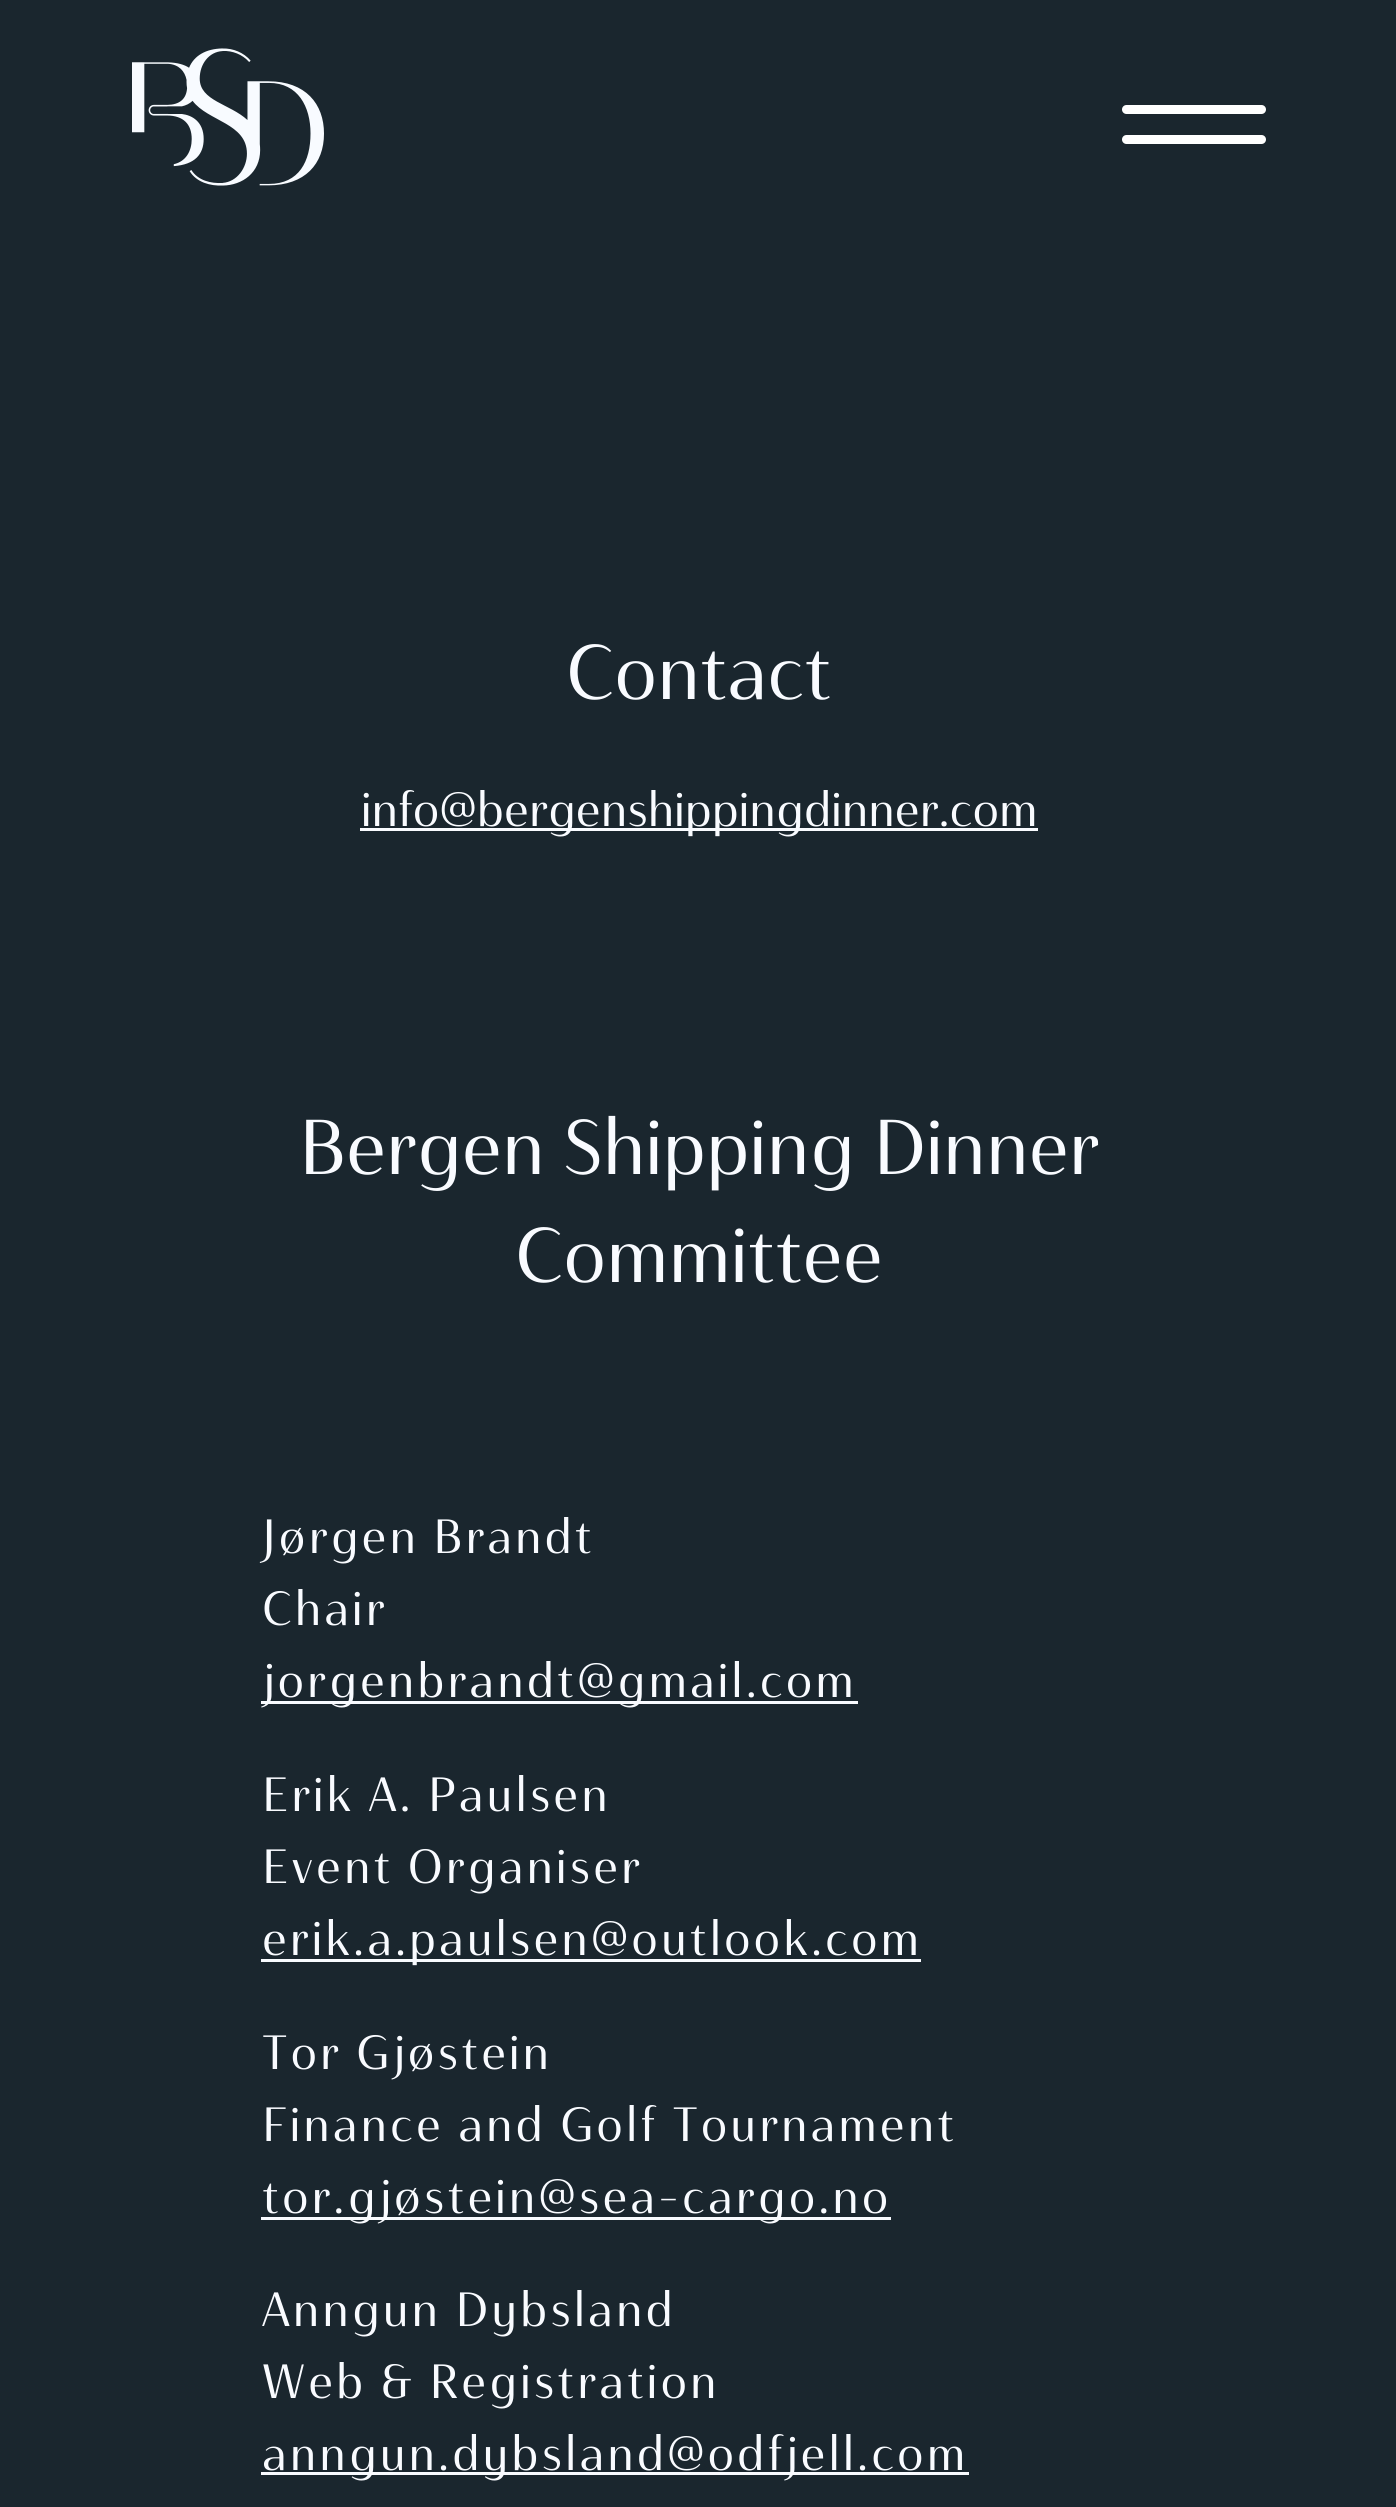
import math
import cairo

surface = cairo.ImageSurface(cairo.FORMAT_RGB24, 1396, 2507)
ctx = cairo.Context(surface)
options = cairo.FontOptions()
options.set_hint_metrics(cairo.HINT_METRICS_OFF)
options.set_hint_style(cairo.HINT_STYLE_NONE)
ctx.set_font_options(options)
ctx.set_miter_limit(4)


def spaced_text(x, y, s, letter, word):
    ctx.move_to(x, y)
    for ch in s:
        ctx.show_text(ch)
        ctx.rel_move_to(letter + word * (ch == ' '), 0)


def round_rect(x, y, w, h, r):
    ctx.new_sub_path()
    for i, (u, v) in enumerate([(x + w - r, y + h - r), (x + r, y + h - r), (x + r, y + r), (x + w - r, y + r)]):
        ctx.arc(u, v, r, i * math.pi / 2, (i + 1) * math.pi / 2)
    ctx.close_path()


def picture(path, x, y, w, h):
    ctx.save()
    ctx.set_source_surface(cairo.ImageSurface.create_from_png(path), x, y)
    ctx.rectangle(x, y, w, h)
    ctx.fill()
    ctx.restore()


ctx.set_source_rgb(0.102, 0.149, 0.18)
ctx.paint()
picture("img1.png", 132, 48, 192, 138)
ctx.set_source_rgb(1, 1, 1)
round_rect(1122, 105, 144, 9, 4.5)
ctx.fill()
round_rect(1122, 135, 144, 9, 4.5)
ctx.fill()
ctx.select_font_face("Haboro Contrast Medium")
ctx.set_font_size(77.5)
ctx.set_source_rgb(0.973, 0.984, 1)
ctx.move_to(566, 699)
ctx.show_text("Contact")
ctx.rectangle(360, 828, 678, 3)
ctx.fill()
ctx.set_font_size(48)
ctx.move_to(361, 826)
ctx.show_text("info@bergenshippingdinner.com")
ctx.set_font_size(77.5)
ctx.move_to(299, 1174)
ctx.show_text("Bergen Shipping Dinner")
ctx.move_to(515, 1282)
ctx.show_text("Committee")
ctx.set_font_size(48)
spaced_text(262, 1553, "Jørgen Brandt", 3, 0)
spaced_text(262, 1625, "Chair", 3, 0)
ctx.rectangle(261, 1701, 597, 3)
ctx.fill()
spaced_text(262, 1697, "jorgenbrandt@gmail.com", 3, 0)
spaced_text(262, 1811, "Erik A. Paulsen", 3, 0)
spaced_text(262, 1883, "Event Organiser", 3, 0)
ctx.rectangle(261, 1959, 660, 3)
ctx.fill()
spaced_text(262, 1955, "erik.a.paulsen@outlook.com", 3, 0)
spaced_text(262, 2069, "Tor Gjøstein", 3, 0)
spaced_text(262, 2141, "Finance and Golf Tournament", 3, 0)
ctx.rectangle(261, 2217, 630, 3)
ctx.fill()
spaced_text(262, 2213, "tor.gjøstein@sea-cargo.no", 3, 0)
spaced_text(262, 2326, "Anngun Dybsland", 3, 0)
spaced_text(262, 2398, "Web & Registration", 3, 0)
ctx.rectangle(261, 2472, 708, 3)
ctx.fill()
spaced_text(262, 2470, "anngun.dybsland@odfjell.com", 3, 0)
surface.write_to_png("page.png")
